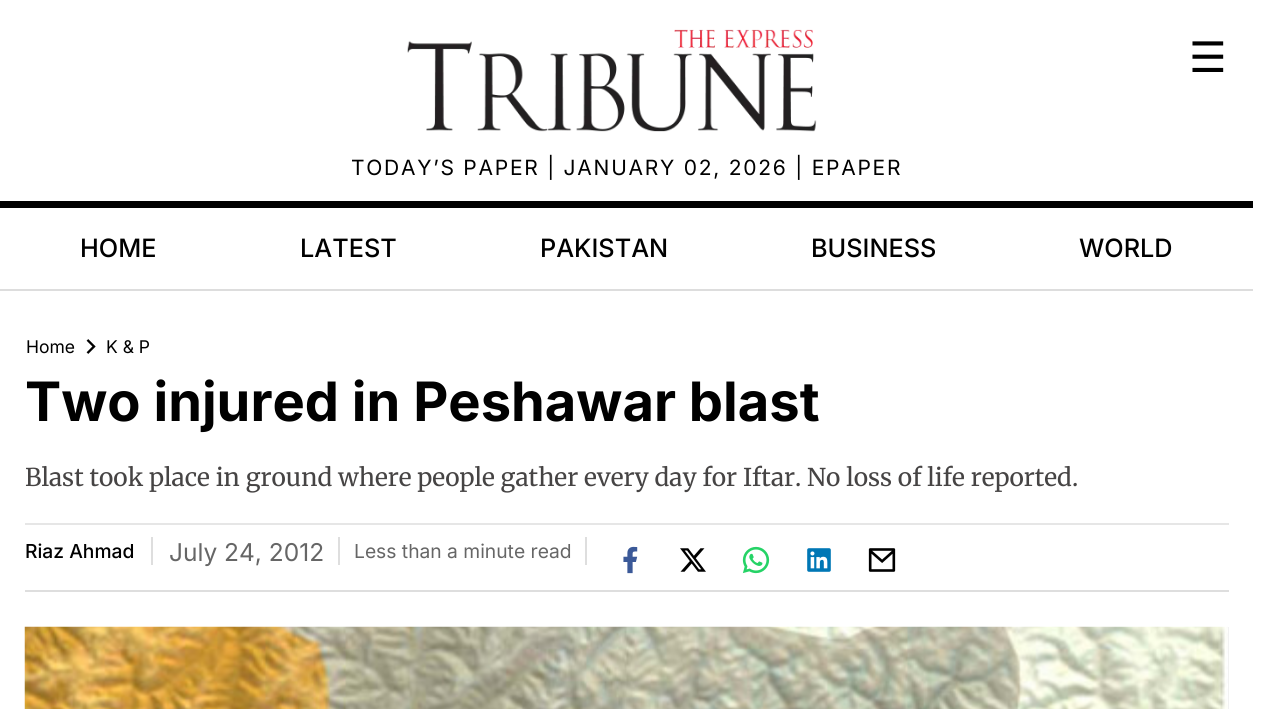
import math
import cairo

surface = cairo.ImageSurface(cairo.FORMAT_RGB24, 1278, 709)
ctx = cairo.Context(surface)
options = cairo.FontOptions()
options.set_hint_metrics(cairo.HINT_METRICS_OFF)
options.set_hint_style(cairo.HINT_STYLE_NONE)
ctx.set_font_options(options)
ctx.set_miter_limit(4)


def spaced_text(x, y, s, letter, word):
    ctx.move_to(x, y)
    for ch in s:
        ctx.show_text(ch)
        ctx.rel_move_to(letter + word * (ch == ' '), 0)


def picture(path, x, y, w, h):
    ctx.save()
    ctx.set_source_surface(cairo.ImageSurface.create_from_png(path), x, y)
    ctx.rectangle(x, y, w, h)
    ctx.fill()
    ctx.restore()


ctx.set_source_rgb(1, 1, 1)
ctx.paint()
picture("img1.png", 407, 29, 410, 103)
ctx.select_font_face("DejaVu Sans")
ctx.set_font_size(42)
ctx.set_source_rgb(0, 0, 0)
ctx.move_to(1189, 72)
ctx.show_text("☰")
ctx.select_font_face("Inter")
ctx.set_font_size(21)
spaced_text(351, 175, "TODAY’S PAPER | JANUARY 02, 2026 | EPAPER", 1.75, 0)
ctx.rectangle(0, 201, 1253, 7)
ctx.fill()
ctx.set_source_rgb(0.867, 0.867, 0.867)
ctx.rectangle(0, 289, 1253, 2)
ctx.fill()
ctx.select_font_face("Inter Medium")
ctx.set_font_size(25.25)
ctx.set_source_rgb(0, 0, 0)
ctx.move_to(80, 257)
ctx.show_text("HOME")
ctx.move_to(300, 257)
ctx.show_text("LATEST")
ctx.move_to(540, 257)
ctx.show_text("PAKISTAN")
ctx.move_to(811, 257)
ctx.show_text("BUSINESS")
ctx.move_to(1079, 257)
ctx.show_text("WORLD")
ctx.select_font_face("Inter")
ctx.set_font_size(17.5)
ctx.move_to(26, 353)
ctx.show_text("Home")
picture("img2.png", 86, 339, 10, 15)
ctx.move_to(106, 353)
ctx.show_text("K & P")
ctx.select_font_face("Inter", cairo.FONT_SLANT_NORMAL, cairo.FONT_WEIGHT_BOLD)
ctx.set_font_size(54.25)
ctx.move_to(25, 421)
ctx.show_text("Two injured in Peshawar blast")
ctx.select_font_face("Merriweather")
ctx.set_font_size(24.5)
ctx.set_source_rgb(0.275, 0.267, 0.267)
ctx.move_to(25, 486)
ctx.show_text("Blast took place in ground where people gather every day for Iftar. No loss of life reported.")
ctx.set_source_rgb(0.902, 0.902, 0.902)
ctx.rectangle(25, 523, 1204, 2)
ctx.fill()
ctx.set_source_rgb(0.871, 0.871, 0.871)
ctx.rectangle(25, 590, 1204, 2)
ctx.fill()
ctx.rectangle(151, 537, 2, 28)
ctx.fill()
ctx.select_font_face("Inter Medium")
ctx.set_font_size(19.25)
ctx.set_source_rgb(0, 0, 0)
ctx.move_to(25, 558)
ctx.show_text("Riaz Ahmad")
ctx.select_font_face("Inter")
ctx.set_font_size(24.5)
ctx.set_source_rgb(0.4, 0.4, 0.4)
ctx.move_to(169, 561)
ctx.show_text("July 24, 2012")
ctx.set_source_rgb(0.871, 0.871, 0.871)
ctx.rectangle(585, 537, 2, 28)
ctx.fill()
ctx.rectangle(338, 537, 2, 28)
ctx.fill()
ctx.set_font_size(19.25)
ctx.set_source_rgb(0.4, 0.4, 0.4)
ctx.move_to(354, 558)
ctx.show_text("Less than a minute read")
picture("img3.png", 623, 546, 15, 28)
picture("img4.png", 680, 548, 26, 24)
picture("img5.png", 742, 546, 28, 28)
picture("img6.png", 807, 548, 24, 24)
picture("img7.png", 868, 548, 28, 24)
ctx.set_source_rgb(0.949, 0.949, 0.949)
ctx.rectangle(1228, 627, 1, 82)
ctx.fill()
picture("img8.png", 24, 626, 1204, 83)
surface.write_to_png("page.png")
